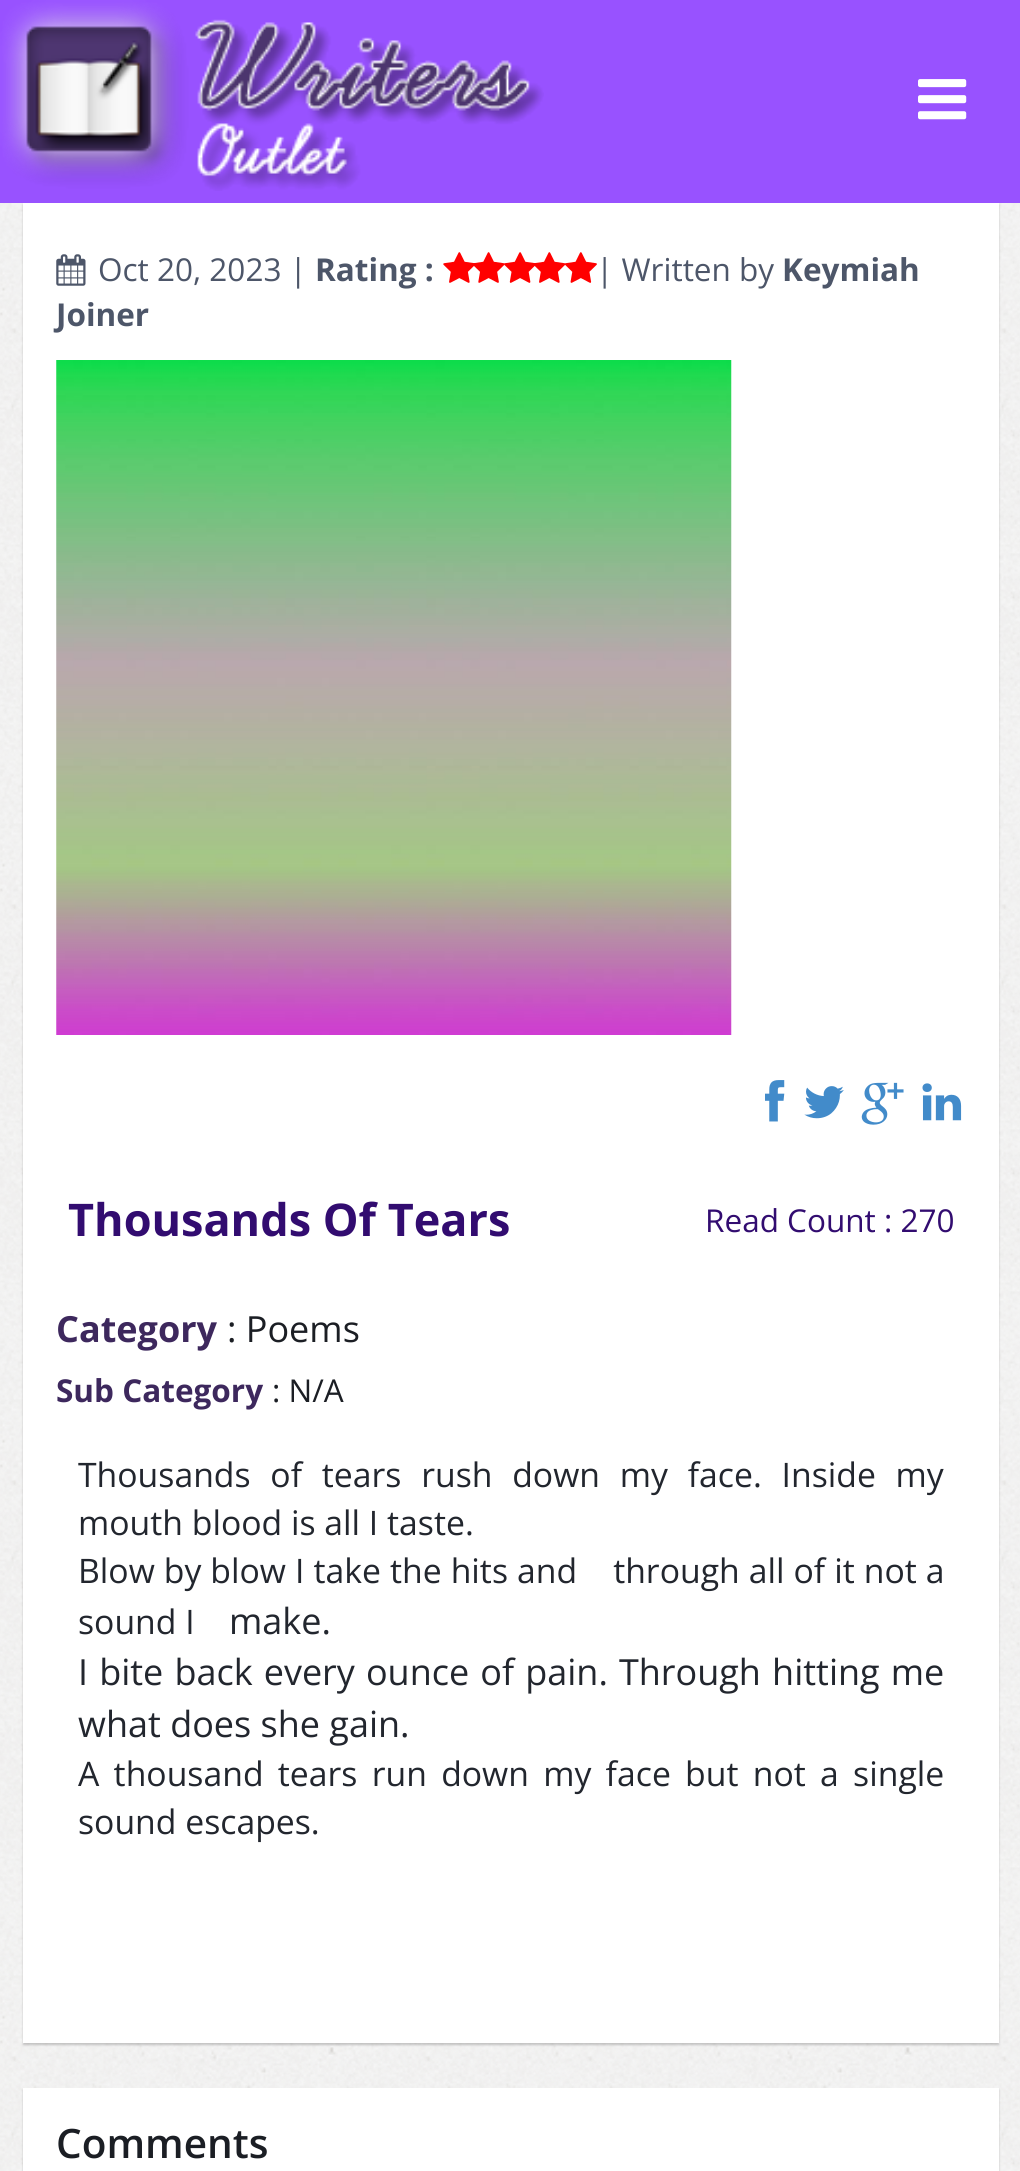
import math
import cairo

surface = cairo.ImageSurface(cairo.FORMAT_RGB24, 1020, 2171)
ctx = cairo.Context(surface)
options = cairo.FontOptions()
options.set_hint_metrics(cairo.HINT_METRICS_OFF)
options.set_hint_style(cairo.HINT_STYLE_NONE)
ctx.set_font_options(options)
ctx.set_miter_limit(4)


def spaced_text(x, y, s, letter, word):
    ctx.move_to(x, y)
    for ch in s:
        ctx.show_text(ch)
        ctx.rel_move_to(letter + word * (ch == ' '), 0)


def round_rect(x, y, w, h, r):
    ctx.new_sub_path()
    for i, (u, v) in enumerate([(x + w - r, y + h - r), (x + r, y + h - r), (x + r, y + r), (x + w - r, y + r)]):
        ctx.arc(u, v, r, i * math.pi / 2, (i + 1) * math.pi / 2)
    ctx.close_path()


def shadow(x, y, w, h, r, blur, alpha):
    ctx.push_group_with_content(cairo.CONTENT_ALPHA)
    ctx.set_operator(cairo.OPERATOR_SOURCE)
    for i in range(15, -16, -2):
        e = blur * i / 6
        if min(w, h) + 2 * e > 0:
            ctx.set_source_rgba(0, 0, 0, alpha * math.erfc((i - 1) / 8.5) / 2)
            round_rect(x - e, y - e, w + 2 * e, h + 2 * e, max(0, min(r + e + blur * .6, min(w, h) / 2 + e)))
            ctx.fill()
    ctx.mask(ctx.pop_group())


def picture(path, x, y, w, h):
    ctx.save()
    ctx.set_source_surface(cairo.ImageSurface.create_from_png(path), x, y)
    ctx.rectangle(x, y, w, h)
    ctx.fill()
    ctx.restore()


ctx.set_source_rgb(0.961, 0.961, 0.961)
ctx.paint()
picture("img3.png", 0, 203, 1020, 1968)
ctx.set_source_rgb(0, 0, 0)
shadow(23, 205, 976, 1840, 0, 1, 0.2)
ctx.set_source_rgb(0.596, 0.322, 1)
ctx.rectangle(0, 0, 1020, 203)
ctx.fill()
picture("img1.png", 0, 0, 544, 191)
picture("img2.png", 918, 79, 49, 41)
ctx.set_source_rgb(1, 1, 1)
ctx.rectangle(23, 203, 976, 1840)
ctx.fill()
picture("img4.png", 56, 254, 30, 32)
ctx.select_font_face("Open Sans")
ctx.set_font_size(31.5)
ctx.set_source_rgb(0.302, 0.337, 0.412)
ctx.move_to(98, 281)
ctx.show_text("Oct 20, 2023 |")
ctx.select_font_face("Open Sans", cairo.FONT_SLANT_NORMAL, cairo.FONT_WEIGHT_BOLD)
ctx.move_to(315, 281)
ctx.show_text("Rating :")
picture("img5.png", 443, 252, 32, 31)
picture("img6.png", 473, 252, 32, 31)
picture("img7.png", 504, 252, 32, 31)
picture("img8.png", 534, 252, 32, 31)
picture("img9.png", 564, 252, 33, 31)
ctx.select_font_face("Open Sans")
ctx.move_to(596, 281)
ctx.show_text("| Written by")
ctx.select_font_face("Open Sans", cairo.FONT_SLANT_NORMAL, cairo.FONT_WEIGHT_BOLD)
ctx.move_to(782, 281)
ctx.show_text("Keymiah")
ctx.move_to(56, 326)
ctx.show_text("Joiner")
picture("img10.png", 56, 360, 676, 675)
picture("img11.png", 765, 1080, 20, 42)
picture("img12.png", 804, 1086, 40, 33)
picture("img13.png", 861, 1082, 43, 43)
picture("img14.png", 922, 1083, 40, 38)
ctx.set_font_size(45)
ctx.set_source_rgb(0.196, 0.047, 0.439)
ctx.move_to(68, 1236)
ctx.show_text("Thousands Of Tears")
ctx.select_font_face("Open Sans")
ctx.set_font_size(31.5)
ctx.move_to(705, 1232)
ctx.show_text("Read Count : 270")
ctx.select_font_face("Open Sans", cairo.FONT_SLANT_NORMAL, cairo.FONT_WEIGHT_BOLD)
ctx.set_font_size(36)
ctx.set_source_rgb(0.239, 0.157, 0.365)
ctx.move_to(56, 1342)
ctx.show_text("Category")
ctx.select_font_face("Open Sans")
ctx.set_source_rgb(0.106, 0.118, 0.141)
ctx.move_to(227, 1342)
ctx.show_text(": Poems")
ctx.select_font_face("Open Sans", cairo.FONT_SLANT_NORMAL, cairo.FONT_WEIGHT_BOLD)
ctx.set_font_size(31.5)
ctx.set_source_rgb(0.239, 0.157, 0.365)
ctx.move_to(56, 1402)
ctx.show_text("Sub Category")
ctx.select_font_face("Open Sans")
ctx.set_source_rgb(0.106, 0.118, 0.141)
ctx.move_to(272, 1402)
ctx.show_text(": N/A")
ctx.set_font_size(33.75)
ctx.set_source_rgb(0.133, 0.149, 0.18)
spaced_text(78, 1487, "Thousands of tears rush down my face. Inside my", 0, 11)
ctx.move_to(78, 1535)
ctx.show_text("mouth blood is all I taste.")
spaced_text(78, 1583, "Blow by blow I take the hits and    through all of it not a", 0, 0.25)
ctx.move_to(78, 1634)
ctx.show_text("sound I")
ctx.set_font_size(36)
ctx.move_to(229, 1634)
ctx.show_text("make.")
spaced_text(78, 1685, "I bite back every ounce of pain. Through hitting me", 0, 1.75)
ctx.move_to(78, 1737)
ctx.show_text("what does she gain.")
ctx.set_font_size(33.75)
spaced_text(78, 1786, "A thousand tears run down my face but not a single", 0, 5.5)
ctx.move_to(78, 1834)
ctx.show_text("sound escapes.")
ctx.set_source_rgb(0, 0, 0)
shadow(23, 2090, 976, 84, 0, 1, 0.2)
ctx.set_source_rgb(1, 1, 1)
ctx.rectangle(23, 2088, 976, 83)
ctx.fill()
ctx.select_font_face("Open Sans SemiBold")
ctx.set_font_size(40.5)
ctx.set_source_rgb(0.106, 0.118, 0.141)
ctx.move_to(56, 2158)
ctx.show_text("Comments")
surface.write_to_png("page.png")
